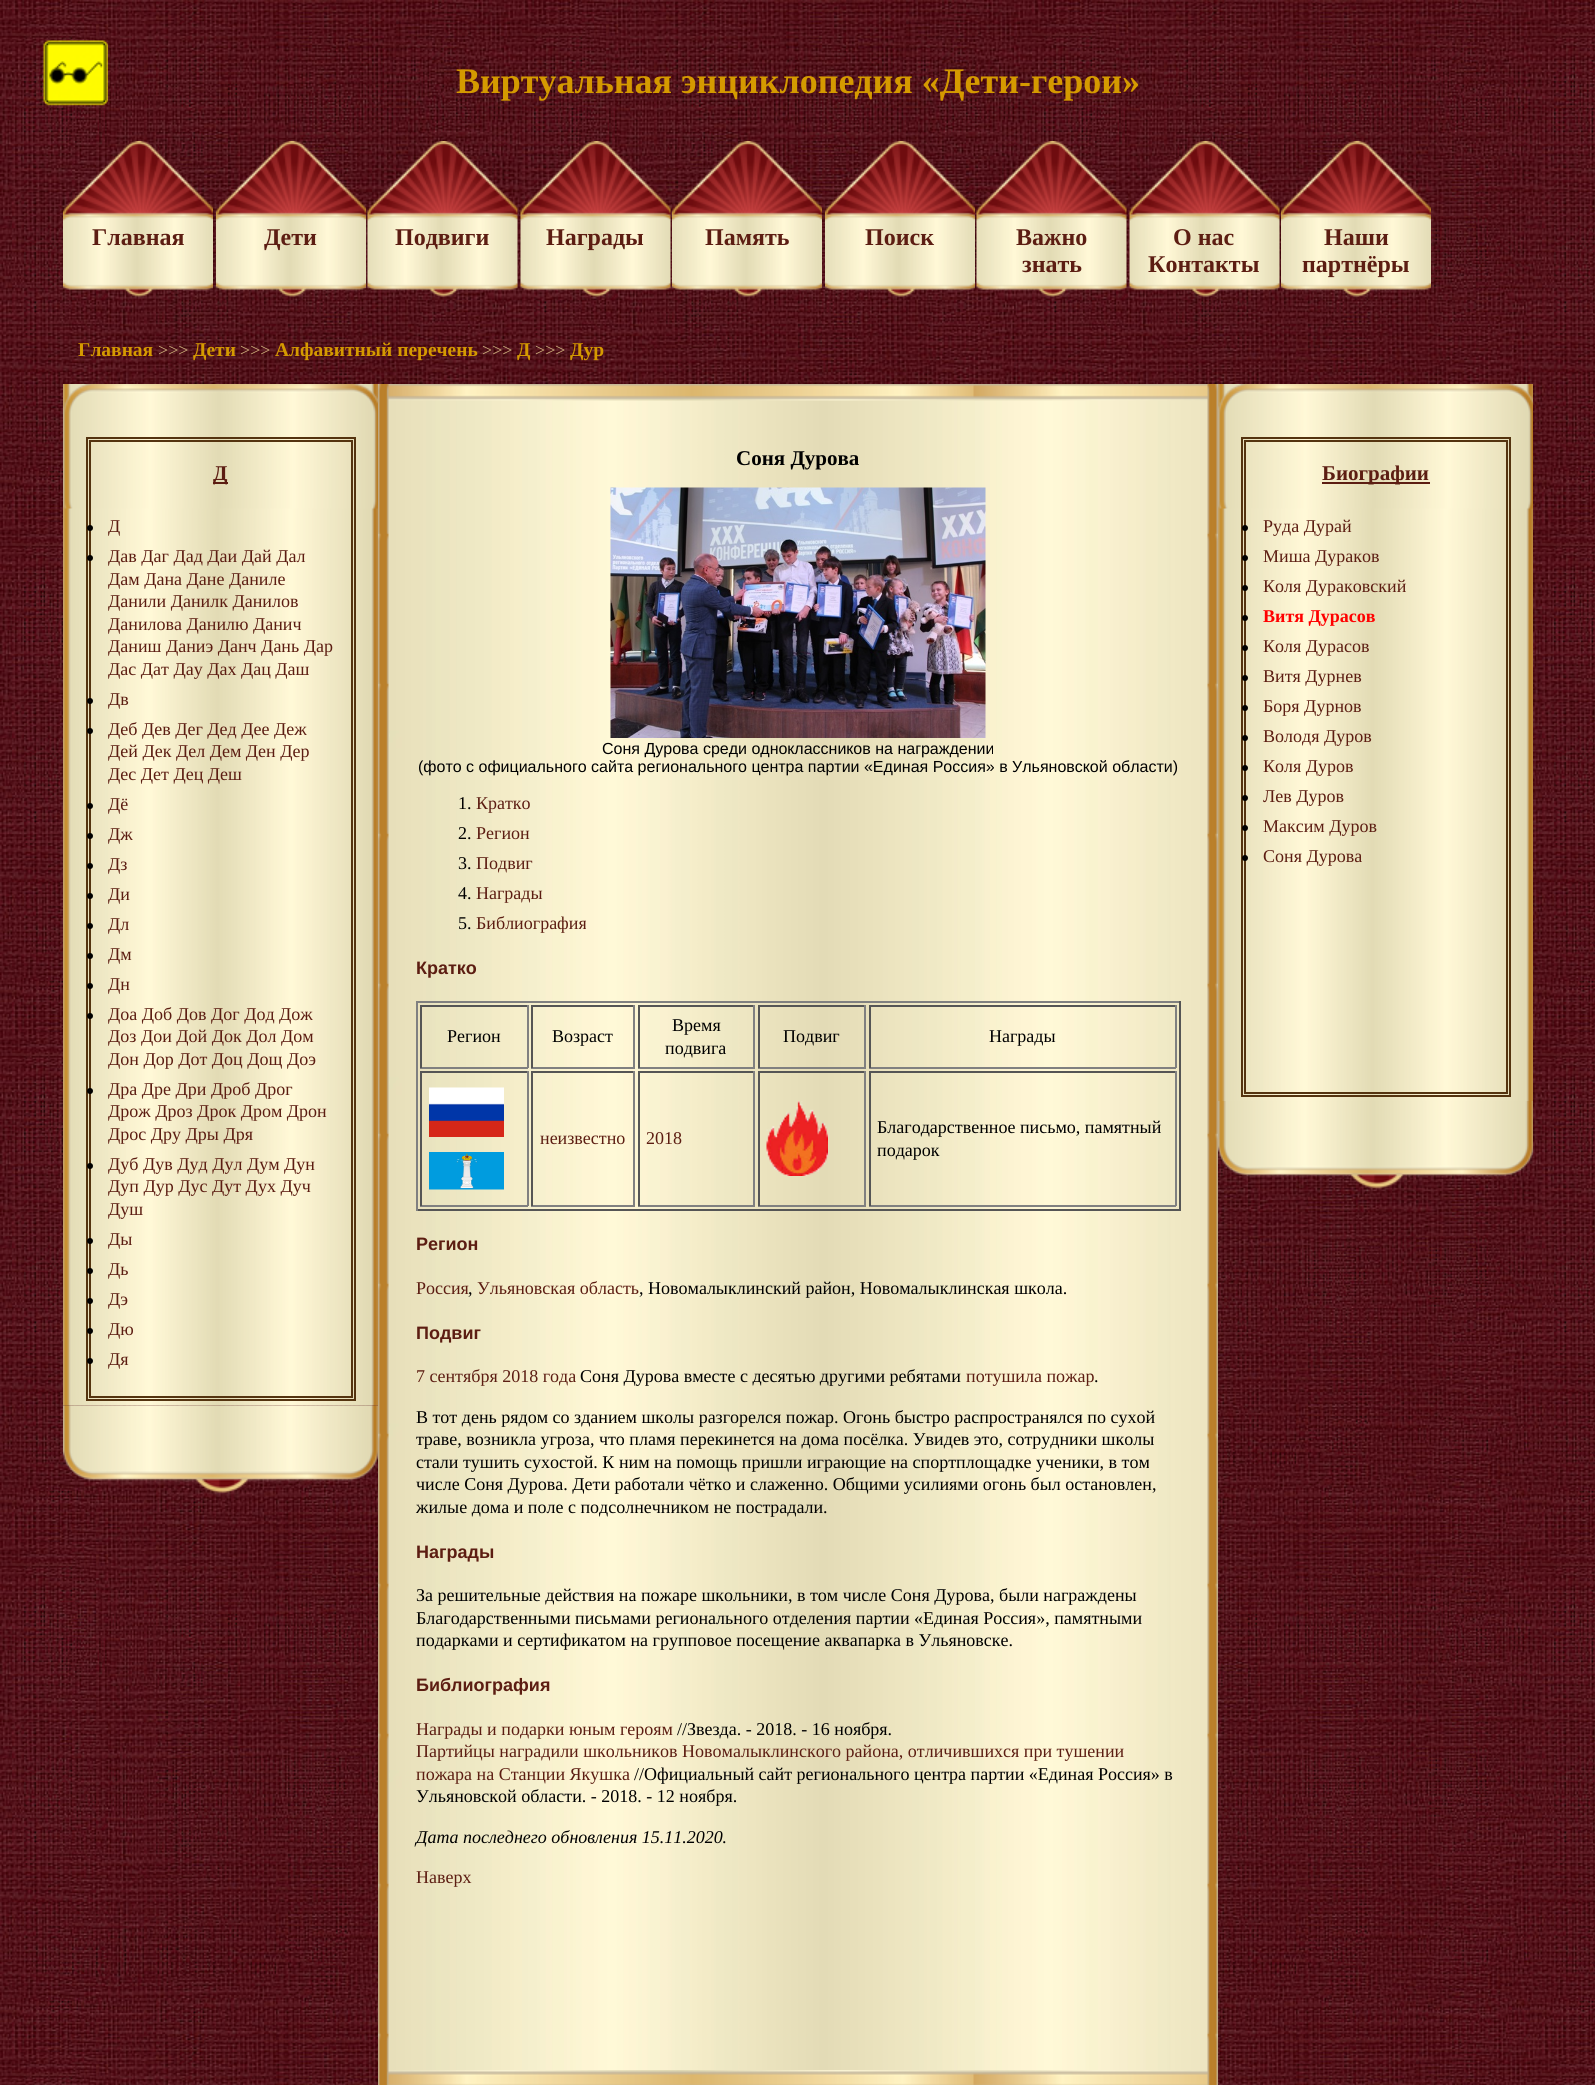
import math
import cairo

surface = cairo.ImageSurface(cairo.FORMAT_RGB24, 1595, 2085)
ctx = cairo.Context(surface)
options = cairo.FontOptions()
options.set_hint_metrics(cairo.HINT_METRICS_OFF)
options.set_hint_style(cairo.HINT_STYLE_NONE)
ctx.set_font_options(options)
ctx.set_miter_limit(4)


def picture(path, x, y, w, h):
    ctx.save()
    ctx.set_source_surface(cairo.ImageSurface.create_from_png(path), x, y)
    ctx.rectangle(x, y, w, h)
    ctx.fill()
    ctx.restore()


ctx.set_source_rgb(1, 1, 1)
ctx.paint()
picture("img1.png", 0, 0, 1595, 2085)
picture("img2.png", 43, 40, 65, 66)
ctx.select_font_face("Liberation Serif", cairo.FONT_SLANT_NORMAL, cairo.FONT_WEIGHT_BOLD)
ctx.set_font_size(36)
ctx.set_source_rgb(0.835, 0.604, 0)
ctx.move_to(456, 93)
ctx.show_text("Виртуальная энциклопедия «Дети-герои»")
picture("img3.png", 63, 141, 150, 156)
ctx.set_font_size(24)
ctx.set_source_rgb(0.361, 0.114, 0.071)
ctx.move_to(92, 245)
ctx.show_text("Главная")
picture("img4.png", 216, 141, 150, 156)
ctx.move_to(264, 245)
ctx.show_text("Дети")
picture("img5.png", 367, 141, 151, 156)
ctx.move_to(395, 245)
ctx.show_text("Подвиги")
picture("img6.png", 520, 141, 151, 156)
ctx.move_to(546, 245)
ctx.show_text("Награды")
picture("img7.png", 672, 141, 150, 156)
ctx.move_to(705, 245)
ctx.show_text("Память")
picture("img8.png", 825, 141, 150, 156)
ctx.move_to(865, 245)
ctx.show_text("Поиск")
picture("img9.png", 976, 141, 151, 156)
ctx.move_to(1016, 245)
ctx.show_text("Важно")
ctx.move_to(1022, 272)
ctx.show_text("знать")
picture("img10.png", 1129, 141, 151, 156)
ctx.move_to(1173, 245)
ctx.show_text("О нас")
ctx.move_to(1148, 272)
ctx.show_text("Контакты")
picture("img11.png", 1281, 141, 150, 156)
ctx.move_to(1324, 245)
ctx.show_text("Наши")
ctx.move_to(1302, 272)
ctx.show_text("партнёры")
ctx.set_font_size(19.5)
ctx.set_source_rgb(0.835, 0.604, 0)
ctx.move_to(78, 356)
ctx.show_text("Главная")
ctx.select_font_face("Liberation Serif")
ctx.set_font_size(18)
ctx.set_source_rgb(0.812, 0.694, 0.49)
ctx.move_to(158, 356)
ctx.show_text(">>>")
ctx.select_font_face("Liberation Serif", cairo.FONT_SLANT_NORMAL, cairo.FONT_WEIGHT_BOLD)
ctx.set_font_size(19.5)
ctx.set_source_rgb(0.835, 0.604, 0)
ctx.move_to(193, 356)
ctx.show_text("Дети")
ctx.select_font_face("Liberation Serif")
ctx.set_font_size(18)
ctx.set_source_rgb(0.812, 0.694, 0.49)
ctx.move_to(240, 356)
ctx.show_text(">>>")
ctx.select_font_face("Liberation Serif", cairo.FONT_SLANT_NORMAL, cairo.FONT_WEIGHT_BOLD)
ctx.set_font_size(19.5)
ctx.set_source_rgb(0.835, 0.604, 0)
ctx.move_to(275, 356)
ctx.show_text("Алфавитный перечень")
ctx.select_font_face("Liberation Serif")
ctx.set_font_size(18)
ctx.set_source_rgb(0.812, 0.694, 0.49)
ctx.move_to(482, 356)
ctx.show_text(">>>")
ctx.select_font_face("Liberation Serif", cairo.FONT_SLANT_NORMAL, cairo.FONT_WEIGHT_BOLD)
ctx.set_font_size(19.5)
ctx.set_source_rgb(0.835, 0.604, 0)
ctx.move_to(517, 356)
ctx.show_text("Д")
ctx.select_font_face("Liberation Serif")
ctx.set_font_size(18)
ctx.set_source_rgb(0.812, 0.694, 0.49)
ctx.move_to(535, 356)
ctx.show_text(">>>")
ctx.select_font_face("Liberation Serif", cairo.FONT_SLANT_NORMAL, cairo.FONT_WEIGHT_BOLD)
ctx.set_font_size(19.5)
ctx.set_source_rgb(0.835, 0.604, 0)
ctx.move_to(570, 356)
ctx.show_text("Дур")
picture("img12.png", 63, 384, 315, 1022)
picture("img13.png", 63, 384, 315, 125)
ctx.rectangle(87, 438, 268, 962)
ctx.set_source_rgb(0.329, 0.2, 0.059)
ctx.stroke()
ctx.rectangle(90, 441, 262, 956)
ctx.stroke()
ctx.set_source_rgb(0.361, 0.114, 0.071)
ctx.rectangle(213, 482, 15, 2)
ctx.fill()
ctx.set_font_size(21)
ctx.move_to(213, 480)
ctx.show_text("Д")
ctx.set_source_rgb(0, 0, 0)
ctx.new_path()
ctx.arc(90, 528, 3, 0, 2 * math.pi)
ctx.fill()
ctx.select_font_face("Liberation Serif")
ctx.set_font_size(18)
ctx.set_source_rgb(0.361, 0.114, 0.071)
ctx.move_to(108, 532)
ctx.show_text("Д")
ctx.set_source_rgb(0, 0, 0)
ctx.new_path()
ctx.arc(90, 558, 3, 0, 2 * math.pi)
ctx.fill()
ctx.set_source_rgb(0.361, 0.114, 0.071)
ctx.move_to(108, 562)
ctx.show_text("Дав Даг Дад Даи Дай Дал")
ctx.move_to(108, 585)
ctx.show_text("Дам Дана Дане Даниле")
ctx.move_to(108, 607)
ctx.show_text("Данили Данилк Данилов")
ctx.move_to(108, 630)
ctx.show_text("Данилова Данилю Данич")
ctx.move_to(108, 652)
ctx.show_text("Даниш Даниэ Данч Дань Дар")
ctx.move_to(108, 675)
ctx.show_text("Дас Дат Дау Дах Дац Даш")
ctx.set_source_rgb(0, 0, 0)
ctx.new_path()
ctx.arc(90, 701, 3, 0, 2 * math.pi)
ctx.fill()
ctx.set_source_rgb(0.361, 0.114, 0.071)
ctx.move_to(108, 705)
ctx.show_text("Дв")
ctx.set_source_rgb(0, 0, 0)
ctx.new_path()
ctx.arc(90, 731, 3, 0, 2 * math.pi)
ctx.fill()
ctx.set_source_rgb(0.361, 0.114, 0.071)
ctx.move_to(108, 735)
ctx.show_text("Деб Дев Дег Дед Дее Деж")
ctx.move_to(108, 757)
ctx.show_text("Дей Дек Дел Дем Ден Дер")
ctx.move_to(108, 780)
ctx.show_text("Дес Дет Дец Деш")
ctx.set_source_rgb(0, 0, 0)
ctx.new_path()
ctx.arc(90, 806, 3, 0, 2 * math.pi)
ctx.fill()
ctx.set_source_rgb(0.361, 0.114, 0.071)
ctx.move_to(108, 810)
ctx.show_text("Дё")
ctx.set_source_rgb(0, 0, 0)
ctx.new_path()
ctx.arc(90, 836, 3, 0, 2 * math.pi)
ctx.fill()
ctx.set_source_rgb(0.361, 0.114, 0.071)
ctx.move_to(108, 840)
ctx.show_text("Дж")
ctx.set_source_rgb(0, 0, 0)
ctx.new_path()
ctx.arc(90, 866, 3, 0, 2 * math.pi)
ctx.fill()
ctx.set_source_rgb(0.361, 0.114, 0.071)
ctx.move_to(108, 870)
ctx.show_text("Дз")
ctx.set_source_rgb(0, 0, 0)
ctx.new_path()
ctx.arc(90, 896, 3, 0, 2 * math.pi)
ctx.fill()
ctx.set_source_rgb(0.361, 0.114, 0.071)
ctx.move_to(108, 900)
ctx.show_text("Ди")
ctx.set_source_rgb(0, 0, 0)
ctx.new_path()
ctx.arc(90, 926, 3, 0, 2 * math.pi)
ctx.fill()
ctx.set_source_rgb(0.361, 0.114, 0.071)
ctx.move_to(108, 930)
ctx.show_text("Дл")
ctx.set_source_rgb(0, 0, 0)
ctx.new_path()
ctx.arc(90, 956, 3, 0, 2 * math.pi)
ctx.fill()
ctx.set_source_rgb(0.361, 0.114, 0.071)
ctx.move_to(108, 960)
ctx.show_text("Дм")
ctx.set_source_rgb(0, 0, 0)
ctx.new_path()
ctx.arc(90, 986, 3, 0, 2 * math.pi)
ctx.fill()
ctx.set_source_rgb(0.361, 0.114, 0.071)
ctx.move_to(108, 990)
ctx.show_text("Дн")
ctx.set_source_rgb(0, 0, 0)
ctx.new_path()
ctx.arc(90, 1016, 3, 0, 2 * math.pi)
ctx.fill()
ctx.set_source_rgb(0.361, 0.114, 0.071)
ctx.move_to(108, 1020)
ctx.show_text("Доа Доб Дов Дог Дод Дож")
ctx.move_to(108, 1042)
ctx.show_text("Доз Дои Дой Док Дол Дом")
ctx.move_to(108, 1065)
ctx.show_text("Дон Дор Дот Доц Дощ Доэ")
ctx.set_source_rgb(0, 0, 0)
ctx.new_path()
ctx.arc(90, 1091, 3, 0, 2 * math.pi)
ctx.fill()
ctx.set_source_rgb(0.361, 0.114, 0.071)
ctx.move_to(108, 1095)
ctx.show_text("Дра Дре Дри Дроб Дрог")
ctx.move_to(108, 1117)
ctx.show_text("Дрож Дроз Дрок Дром Дрон")
ctx.move_to(108, 1140)
ctx.show_text("Дрос Дру Дры Дря")
ctx.set_source_rgb(0, 0, 0)
ctx.new_path()
ctx.arc(90, 1166, 3, 0, 2 * math.pi)
ctx.fill()
ctx.set_source_rgb(0.361, 0.114, 0.071)
ctx.move_to(108, 1170)
ctx.show_text("Дуб Дув Дуд Дул Дум Дун")
ctx.move_to(108, 1192)
ctx.show_text("Дуп Дур Дус Дут Дух Дуч")
ctx.move_to(108, 1215)
ctx.show_text("Душ")
ctx.set_source_rgb(0, 0, 0)
ctx.new_path()
ctx.arc(90, 1241, 3, 0, 2 * math.pi)
ctx.fill()
ctx.set_source_rgb(0.361, 0.114, 0.071)
ctx.move_to(108, 1245)
ctx.show_text("Ды")
ctx.set_source_rgb(0, 0, 0)
ctx.new_path()
ctx.arc(90, 1271, 3, 0, 2 * math.pi)
ctx.fill()
ctx.set_source_rgb(0.361, 0.114, 0.071)
ctx.move_to(108, 1275)
ctx.show_text("Дь")
ctx.set_source_rgb(0, 0, 0)
ctx.new_path()
ctx.arc(90, 1301, 3, 0, 2 * math.pi)
ctx.fill()
ctx.set_source_rgb(0.361, 0.114, 0.071)
ctx.move_to(108, 1305)
ctx.show_text("Дэ")
ctx.set_source_rgb(0, 0, 0)
ctx.new_path()
ctx.arc(90, 1331, 3, 0, 2 * math.pi)
ctx.fill()
ctx.set_source_rgb(0.361, 0.114, 0.071)
ctx.move_to(108, 1335)
ctx.show_text("Дю")
ctx.set_source_rgb(0, 0, 0)
ctx.new_path()
ctx.arc(90, 1361, 3, 0, 2 * math.pi)
ctx.fill()
ctx.set_source_rgb(0.361, 0.114, 0.071)
ctx.move_to(108, 1365)
ctx.show_text("Дя")
picture("img14.png", 63, 1405, 315, 88)
picture("img15.png", 378, 400, 840, 1670)
picture("img16.png", 378, 384, 840, 17)
picture("img17.png", 388, 2070, 820, 15)
picture("img18.png", 378, 384, 11, 1701)
picture("img19.png", 1207, 384, 11, 1701)
ctx.select_font_face("Liberation Serif", cairo.FONT_SLANT_NORMAL, cairo.FONT_WEIGHT_BOLD)
ctx.set_font_size(21)
ctx.set_source_rgb(0, 0, 0)
ctx.move_to(736, 465)
ctx.show_text("Соня Дурова")
picture("img20.png", 610, 487, 376, 251)
ctx.select_font_face("Liberation Sans")
ctx.set_font_size(16)
ctx.move_to(602, 754)
ctx.show_text("Соня Дурова среди одноклассников на награждении")
ctx.move_to(418, 772)
ctx.show_text("(фото с официального сайта регионального центра партии «Единая Россия» в Ульяновской области)")
ctx.select_font_face("Liberation Serif")
ctx.set_font_size(18)
ctx.move_to(458, 809)
ctx.show_text("1.")
ctx.set_source_rgb(0.361, 0.114, 0.071)
ctx.move_to(476, 809)
ctx.show_text("Кратко")
ctx.set_source_rgb(0, 0, 0)
ctx.move_to(458, 839)
ctx.show_text("2.")
ctx.set_source_rgb(0.361, 0.114, 0.071)
ctx.move_to(476, 839)
ctx.show_text("Регион")
ctx.set_source_rgb(0, 0, 0)
ctx.move_to(458, 869)
ctx.show_text("3.")
ctx.set_source_rgb(0.361, 0.114, 0.071)
ctx.move_to(476, 869)
ctx.show_text("Подвиг")
ctx.set_source_rgb(0, 0, 0)
ctx.move_to(458, 899)
ctx.show_text("4.")
ctx.set_source_rgb(0.361, 0.114, 0.071)
ctx.move_to(476, 899)
ctx.show_text("Награды")
ctx.set_source_rgb(0, 0, 0)
ctx.move_to(458, 929)
ctx.show_text("5.")
ctx.set_source_rgb(0.361, 0.114, 0.071)
ctx.move_to(476, 929)
ctx.show_text("Библиография")
ctx.select_font_face("Liberation Sans", cairo.FONT_SLANT_NORMAL, cairo.FONT_WEIGHT_BOLD)
ctx.move_to(416, 974)
ctx.show_text("Кратко")
ctx.set_source_rgb(0.502, 0.502, 0.502)
ctx.rectangle(416, 1001, 765, 2)
ctx.fill()
ctx.set_source_rgb(0.333, 0.333, 0.333)
ctx.rectangle(1179, 1001, 2, 210)
ctx.fill()
ctx.rectangle(416, 1209, 765, 2)
ctx.fill()
ctx.set_source_rgb(0.502, 0.502, 0.502)
ctx.rectangle(416, 1001, 2, 210)
ctx.fill()
ctx.set_source_rgb(0.333, 0.333, 0.333)
ctx.rectangle(420, 1005, 108, 2)
ctx.fill()
ctx.set_source_rgb(0.502, 0.502, 0.502)
ctx.rectangle(527, 1005, 2, 63)
ctx.fill()
ctx.rectangle(420, 1067, 108, 2)
ctx.fill()
ctx.set_source_rgb(0.333, 0.333, 0.333)
ctx.rectangle(420, 1005, 2, 63)
ctx.fill()
ctx.select_font_face("Liberation Serif")
ctx.set_source_rgb(0, 0, 0)
ctx.move_to(447, 1042)
ctx.show_text("Регион")
ctx.set_source_rgb(0.333, 0.333, 0.333)
ctx.rectangle(531, 1005, 104, 2)
ctx.fill()
ctx.set_source_rgb(0.502, 0.502, 0.502)
ctx.rectangle(633, 1005, 2, 63)
ctx.fill()
ctx.rectangle(531, 1067, 104, 2)
ctx.fill()
ctx.set_source_rgb(0.333, 0.333, 0.333)
ctx.rectangle(531, 1005, 2, 63)
ctx.fill()
ctx.set_source_rgb(0, 0, 0)
ctx.move_to(552, 1042)
ctx.show_text("Возраст")
ctx.set_source_rgb(0.333, 0.333, 0.333)
ctx.rectangle(638, 1005, 117, 2)
ctx.fill()
ctx.set_source_rgb(0.502, 0.502, 0.502)
ctx.rectangle(753, 1005, 2, 63)
ctx.fill()
ctx.rectangle(638, 1067, 117, 2)
ctx.fill()
ctx.set_source_rgb(0.333, 0.333, 0.333)
ctx.rectangle(638, 1005, 2, 63)
ctx.fill()
ctx.set_source_rgb(0, 0, 0)
ctx.move_to(672, 1031)
ctx.show_text("Время")
ctx.move_to(665, 1054)
ctx.show_text("подвига")
ctx.set_source_rgb(0.333, 0.333, 0.333)
ctx.rectangle(758, 1005, 108, 2)
ctx.fill()
ctx.set_source_rgb(0.502, 0.502, 0.502)
ctx.rectangle(864, 1005, 2, 63)
ctx.fill()
ctx.rectangle(758, 1067, 108, 2)
ctx.fill()
ctx.set_source_rgb(0.333, 0.333, 0.333)
ctx.rectangle(758, 1005, 2, 63)
ctx.fill()
ctx.set_source_rgb(0, 0, 0)
ctx.move_to(783, 1042)
ctx.show_text("Подвиг")
ctx.set_source_rgb(0.333, 0.333, 0.333)
ctx.rectangle(869, 1005, 307, 2)
ctx.fill()
ctx.set_source_rgb(0.502, 0.502, 0.502)
ctx.rectangle(1175, 1005, 2, 63)
ctx.fill()
ctx.rectangle(869, 1067, 307, 2)
ctx.fill()
ctx.set_source_rgb(0.333, 0.333, 0.333)
ctx.rectangle(869, 1005, 2, 63)
ctx.fill()
ctx.set_source_rgb(0, 0, 0)
ctx.move_to(989, 1042)
ctx.show_text("Награды")
ctx.set_source_rgb(0.333, 0.333, 0.333)
ctx.rectangle(420, 1071, 108, 2)
ctx.fill()
ctx.set_source_rgb(0.502, 0.502, 0.502)
ctx.rectangle(527, 1071, 2, 135)
ctx.fill()
ctx.rectangle(420, 1205, 108, 2)
ctx.fill()
ctx.set_source_rgb(0.333, 0.333, 0.333)
ctx.rectangle(420, 1071, 2, 135)
ctx.fill()
picture("img21.png", 429, 1087, 75, 50)
picture("img22.png", 429, 1152, 75, 38)
ctx.rectangle(531, 1071, 104, 2)
ctx.fill()
ctx.set_source_rgb(0.502, 0.502, 0.502)
ctx.rectangle(633, 1071, 2, 135)
ctx.fill()
ctx.rectangle(531, 1205, 104, 2)
ctx.fill()
ctx.set_source_rgb(0.333, 0.333, 0.333)
ctx.rectangle(531, 1071, 2, 135)
ctx.fill()
ctx.set_source_rgb(0.361, 0.114, 0.071)
ctx.move_to(540, 1144)
ctx.show_text("неизвестно")
ctx.set_source_rgb(0.333, 0.333, 0.333)
ctx.rectangle(638, 1071, 117, 2)
ctx.fill()
ctx.set_source_rgb(0.502, 0.502, 0.502)
ctx.rectangle(753, 1071, 2, 135)
ctx.fill()
ctx.rectangle(638, 1205, 117, 2)
ctx.fill()
ctx.set_source_rgb(0.333, 0.333, 0.333)
ctx.rectangle(638, 1071, 2, 135)
ctx.fill()
ctx.set_source_rgb(0.361, 0.114, 0.071)
ctx.move_to(646, 1144)
ctx.show_text("2018")
ctx.set_source_rgb(0.333, 0.333, 0.333)
ctx.rectangle(758, 1071, 108, 2)
ctx.fill()
ctx.set_source_rgb(0.502, 0.502, 0.502)
ctx.rectangle(864, 1071, 2, 135)
ctx.fill()
ctx.rectangle(758, 1205, 108, 2)
ctx.fill()
ctx.set_source_rgb(0.333, 0.333, 0.333)
ctx.rectangle(758, 1071, 2, 135)
ctx.fill()
picture("img23.png", 766, 1101, 62, 75)
ctx.rectangle(869, 1071, 307, 2)
ctx.fill()
ctx.set_source_rgb(0.502, 0.502, 0.502)
ctx.rectangle(1175, 1071, 2, 135)
ctx.fill()
ctx.rectangle(869, 1205, 307, 2)
ctx.fill()
ctx.set_source_rgb(0.333, 0.333, 0.333)
ctx.rectangle(869, 1071, 2, 135)
ctx.fill()
ctx.set_source_rgb(0, 0, 0)
ctx.move_to(877, 1133)
ctx.show_text("Благодарственное письмо, памятный")
ctx.move_to(877, 1156)
ctx.show_text("подарок")
ctx.select_font_face("Liberation Sans", cairo.FONT_SLANT_NORMAL, cairo.FONT_WEIGHT_BOLD)
ctx.set_source_rgb(0.361, 0.114, 0.071)
ctx.move_to(416, 1250)
ctx.show_text("Регион")
ctx.select_font_face("Liberation Serif")
ctx.move_to(416, 1294)
ctx.show_text("Россия")
ctx.set_source_rgb(0, 0, 0)
ctx.move_to(468, 1294)
ctx.show_text(",")
ctx.set_source_rgb(0.361, 0.114, 0.071)
ctx.move_to(477, 1294)
ctx.show_text("Ульяновская область")
ctx.set_source_rgb(0, 0, 0)
ctx.move_to(639, 1294)
ctx.show_text(", Новомалыклинский район, Новомалыклинская школа.")
ctx.select_font_face("Liberation Sans", cairo.FONT_SLANT_NORMAL, cairo.FONT_WEIGHT_BOLD)
ctx.set_source_rgb(0.361, 0.114, 0.071)
ctx.move_to(416, 1339)
ctx.show_text("Подвиг")
ctx.select_font_face("Liberation Serif")
ctx.move_to(416, 1382)
ctx.show_text("7 сентября 2018 года")
ctx.set_source_rgb(0, 0, 0)
ctx.move_to(580, 1382)
ctx.show_text("Соня Дурова вместе с десятью другими ребятами")
ctx.set_source_rgb(0.361, 0.114, 0.071)
ctx.move_to(966, 1382)
ctx.show_text("потушила пожар")
ctx.set_source_rgb(0, 0, 0)
ctx.move_to(1094, 1382)
ctx.show_text(".")
ctx.move_to(416, 1423)
ctx.show_text("В тот день рядом со зданием школы разгорелся пожар. Огонь быстро распространялся по сухой")
ctx.move_to(416, 1445)
ctx.show_text("траве, возникла угроза, что пламя перекинется на дома посёлка. Увидев это, сотрудники школы")
ctx.move_to(416, 1468)
ctx.show_text("стали тушить сухостой. К ним на помощь пришли играющие на спортплощадке ученики, в том")
ctx.move_to(416, 1490)
ctx.show_text("числе Соня Дурова. Дети работали чётко и слаженно. Общими усилиями огонь был остановлен,")
ctx.move_to(416, 1513)
ctx.show_text("жилые дома и поле с подсолнечником не пострадали.")
ctx.select_font_face("Liberation Sans", cairo.FONT_SLANT_NORMAL, cairo.FONT_WEIGHT_BOLD)
ctx.set_source_rgb(0.361, 0.114, 0.071)
ctx.move_to(416, 1558)
ctx.show_text("Награды")
ctx.select_font_face("Liberation Serif")
ctx.set_source_rgb(0, 0, 0)
ctx.move_to(416, 1601)
ctx.show_text("За решительные действия на пожаре школьники, в том числе Соня Дурова, были награждены")
ctx.move_to(416, 1624)
ctx.show_text("Благодарственными письмами регионального отделения партии «Единая Россия», памятными")
ctx.move_to(416, 1646)
ctx.show_text("подарками и сертификатом на групповое посещение аквапарка в Ульяновске.")
ctx.select_font_face("Liberation Sans", cairo.FONT_SLANT_NORMAL, cairo.FONT_WEIGHT_BOLD)
ctx.set_source_rgb(0.361, 0.114, 0.071)
ctx.move_to(416, 1691)
ctx.show_text("Библиография")
ctx.select_font_face("Liberation Serif")
ctx.move_to(416, 1735)
ctx.show_text("Награды и подарки юным героям")
ctx.set_source_rgb(0, 0, 0)
ctx.move_to(677, 1735)
ctx.show_text("//Звезда. - 2018. - 16 ноября.")
ctx.set_source_rgb(0.361, 0.114, 0.071)
ctx.move_to(416, 1757)
ctx.show_text("Партийцы наградили школьников Новомалыклинского района, отличившихся при тушении")
ctx.move_to(416, 1780)
ctx.show_text("пожара на Станции Якушка")
ctx.set_source_rgb(0, 0, 0)
ctx.move_to(634, 1780)
ctx.show_text("//Официальный сайт регионального центра партии «Единая Россия» в")
ctx.move_to(416, 1802)
ctx.show_text("Ульяновской области. - 2018. - 12 ноября.")
ctx.select_font_face("Liberation Serif", cairo.FONT_SLANT_ITALIC)
ctx.move_to(416, 1843)
ctx.show_text("Дата последнего обновления 15.11.2020")
ctx.select_font_face("Liberation Serif")
ctx.move_to(722, 1843)
ctx.show_text(".")
ctx.set_source_rgb(0.361, 0.114, 0.071)
ctx.move_to(416, 1883)
ctx.show_text("Наверх")
picture("img24.png", 1218, 384, 315, 717)
picture("img25.png", 1218, 384, 315, 125)
ctx.rectangle(1242, 438, 268, 658)
ctx.set_source_rgb(0.329, 0.2, 0.059)
ctx.stroke()
ctx.rectangle(1245, 441, 262, 652)
ctx.stroke()
ctx.set_source_rgb(0.361, 0.114, 0.071)
ctx.rectangle(1322, 482, 108, 2)
ctx.fill()
ctx.select_font_face("Liberation Serif", cairo.FONT_SLANT_NORMAL, cairo.FONT_WEIGHT_BOLD)
ctx.set_font_size(21)
ctx.move_to(1322, 480)
ctx.show_text("Биографии")
ctx.set_source_rgb(0, 0, 0)
ctx.new_path()
ctx.arc(1245, 528, 3, 0, 2 * math.pi)
ctx.fill()
ctx.select_font_face("Liberation Serif")
ctx.set_font_size(18)
ctx.set_source_rgb(0.361, 0.114, 0.071)
ctx.move_to(1263, 532)
ctx.show_text("Руда Дурай")
ctx.set_source_rgb(0, 0, 0)
ctx.new_path()
ctx.arc(1245, 558, 3, 0, 2 * math.pi)
ctx.fill()
ctx.set_source_rgb(0.361, 0.114, 0.071)
ctx.move_to(1263, 562)
ctx.show_text("Миша Дураков")
ctx.set_source_rgb(0, 0, 0)
ctx.new_path()
ctx.arc(1245, 588, 3, 0, 2 * math.pi)
ctx.fill()
ctx.set_source_rgb(0.361, 0.114, 0.071)
ctx.move_to(1263, 592)
ctx.show_text("Коля Дураковский")
ctx.set_source_rgb(0, 0, 0)
ctx.new_path()
ctx.arc(1245, 618, 3, 0, 2 * math.pi)
ctx.fill()
ctx.select_font_face("Liberation Serif", cairo.FONT_SLANT_NORMAL, cairo.FONT_WEIGHT_BOLD)
ctx.set_source_rgb(1, 0, 0)
ctx.move_to(1263, 622)
ctx.show_text("Витя Дурасов")
ctx.set_source_rgb(0, 0, 0)
ctx.new_path()
ctx.arc(1245, 648, 3, 0, 2 * math.pi)
ctx.fill()
ctx.select_font_face("Liberation Serif")
ctx.set_source_rgb(0.361, 0.114, 0.071)
ctx.move_to(1263, 652)
ctx.show_text("Коля Дурасов")
ctx.set_source_rgb(0, 0, 0)
ctx.new_path()
ctx.arc(1245, 678, 3, 0, 2 * math.pi)
ctx.fill()
ctx.set_source_rgb(0.361, 0.114, 0.071)
ctx.move_to(1263, 682)
ctx.show_text("Витя Дурнев")
ctx.set_source_rgb(0, 0, 0)
ctx.new_path()
ctx.arc(1245, 708, 3, 0, 2 * math.pi)
ctx.fill()
ctx.set_source_rgb(0.361, 0.114, 0.071)
ctx.move_to(1263, 712)
ctx.show_text("Боря Дурнов")
ctx.set_source_rgb(0, 0, 0)
ctx.new_path()
ctx.arc(1245, 738, 3, 0, 2 * math.pi)
ctx.fill()
ctx.set_source_rgb(0.361, 0.114, 0.071)
ctx.move_to(1263, 742)
ctx.show_text("Володя Дуров")
ctx.set_source_rgb(0, 0, 0)
ctx.new_path()
ctx.arc(1245, 768, 3, 0, 2 * math.pi)
ctx.fill()
ctx.set_source_rgb(0.361, 0.114, 0.071)
ctx.move_to(1263, 772)
ctx.show_text("Коля Дуров")
ctx.set_source_rgb(0, 0, 0)
ctx.new_path()
ctx.arc(1245, 798, 3, 0, 2 * math.pi)
ctx.fill()
ctx.set_source_rgb(0.361, 0.114, 0.071)
ctx.move_to(1263, 802)
ctx.show_text("Лев Дуров")
ctx.set_source_rgb(0, 0, 0)
ctx.new_path()
ctx.arc(1245, 828, 3, 0, 2 * math.pi)
ctx.fill()
ctx.set_source_rgb(0.361, 0.114, 0.071)
ctx.move_to(1263, 832)
ctx.show_text("Максим Дуров")
ctx.set_source_rgb(0, 0, 0)
ctx.new_path()
ctx.arc(1245, 858, 3, 0, 2 * math.pi)
ctx.fill()
ctx.set_source_rgb(0.361, 0.114, 0.071)
ctx.move_to(1263, 862)
ctx.show_text("Соня Дурова")
picture("img26.png", 1218, 1101, 315, 88)
surface.write_to_png("page.png")
